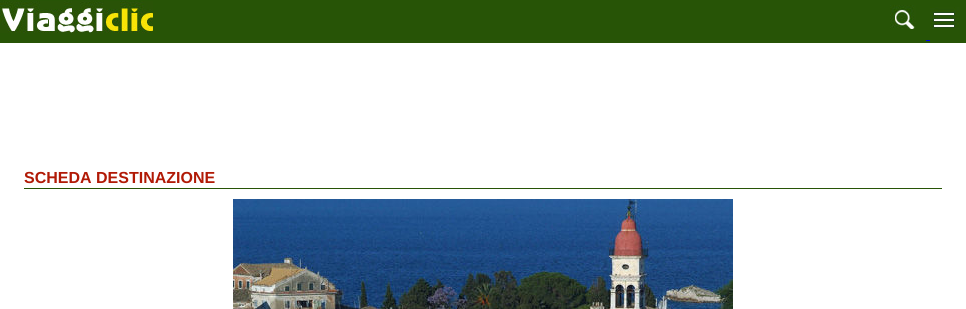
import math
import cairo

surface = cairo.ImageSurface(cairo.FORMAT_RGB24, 966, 309)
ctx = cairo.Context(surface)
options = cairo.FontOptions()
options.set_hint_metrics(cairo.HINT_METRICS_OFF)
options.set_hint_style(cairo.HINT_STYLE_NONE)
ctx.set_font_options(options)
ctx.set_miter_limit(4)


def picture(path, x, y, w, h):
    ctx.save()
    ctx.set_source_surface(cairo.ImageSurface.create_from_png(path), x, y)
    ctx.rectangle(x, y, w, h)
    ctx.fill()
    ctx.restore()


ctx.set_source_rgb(1, 1, 1)
ctx.paint()
ctx.set_source_rgb(0.153, 0.329, 0.027)
ctx.rectangle(0, 0, 966, 43)
ctx.fill()
picture("img1.png", 0, 1, 153, 32)
picture("img2.png", 890, 5, 26, 24)
picture("img3.png", 930, 7, 30, 22)
ctx.set_source_rgb(0, 0, 0.933)
ctx.rectangle(926, 40, 4, 1)
ctx.fill()
ctx.set_source_rgb(0.153, 0.329, 0.027)
ctx.rectangle(24, 188, 918, 1)
ctx.fill()
ctx.select_font_face("Liberation Sans", cairo.FONT_SLANT_NORMAL, cairo.FONT_WEIGHT_BOLD)
ctx.set_font_size(16)
ctx.set_source_rgb(0.694, 0.102, 0.024)
ctx.move_to(24, 183)
ctx.show_text("SCHEDA DESTINAZIONE")
picture("img4.png", 233, 199, 500, 110)
surface.write_to_png("page.png")
